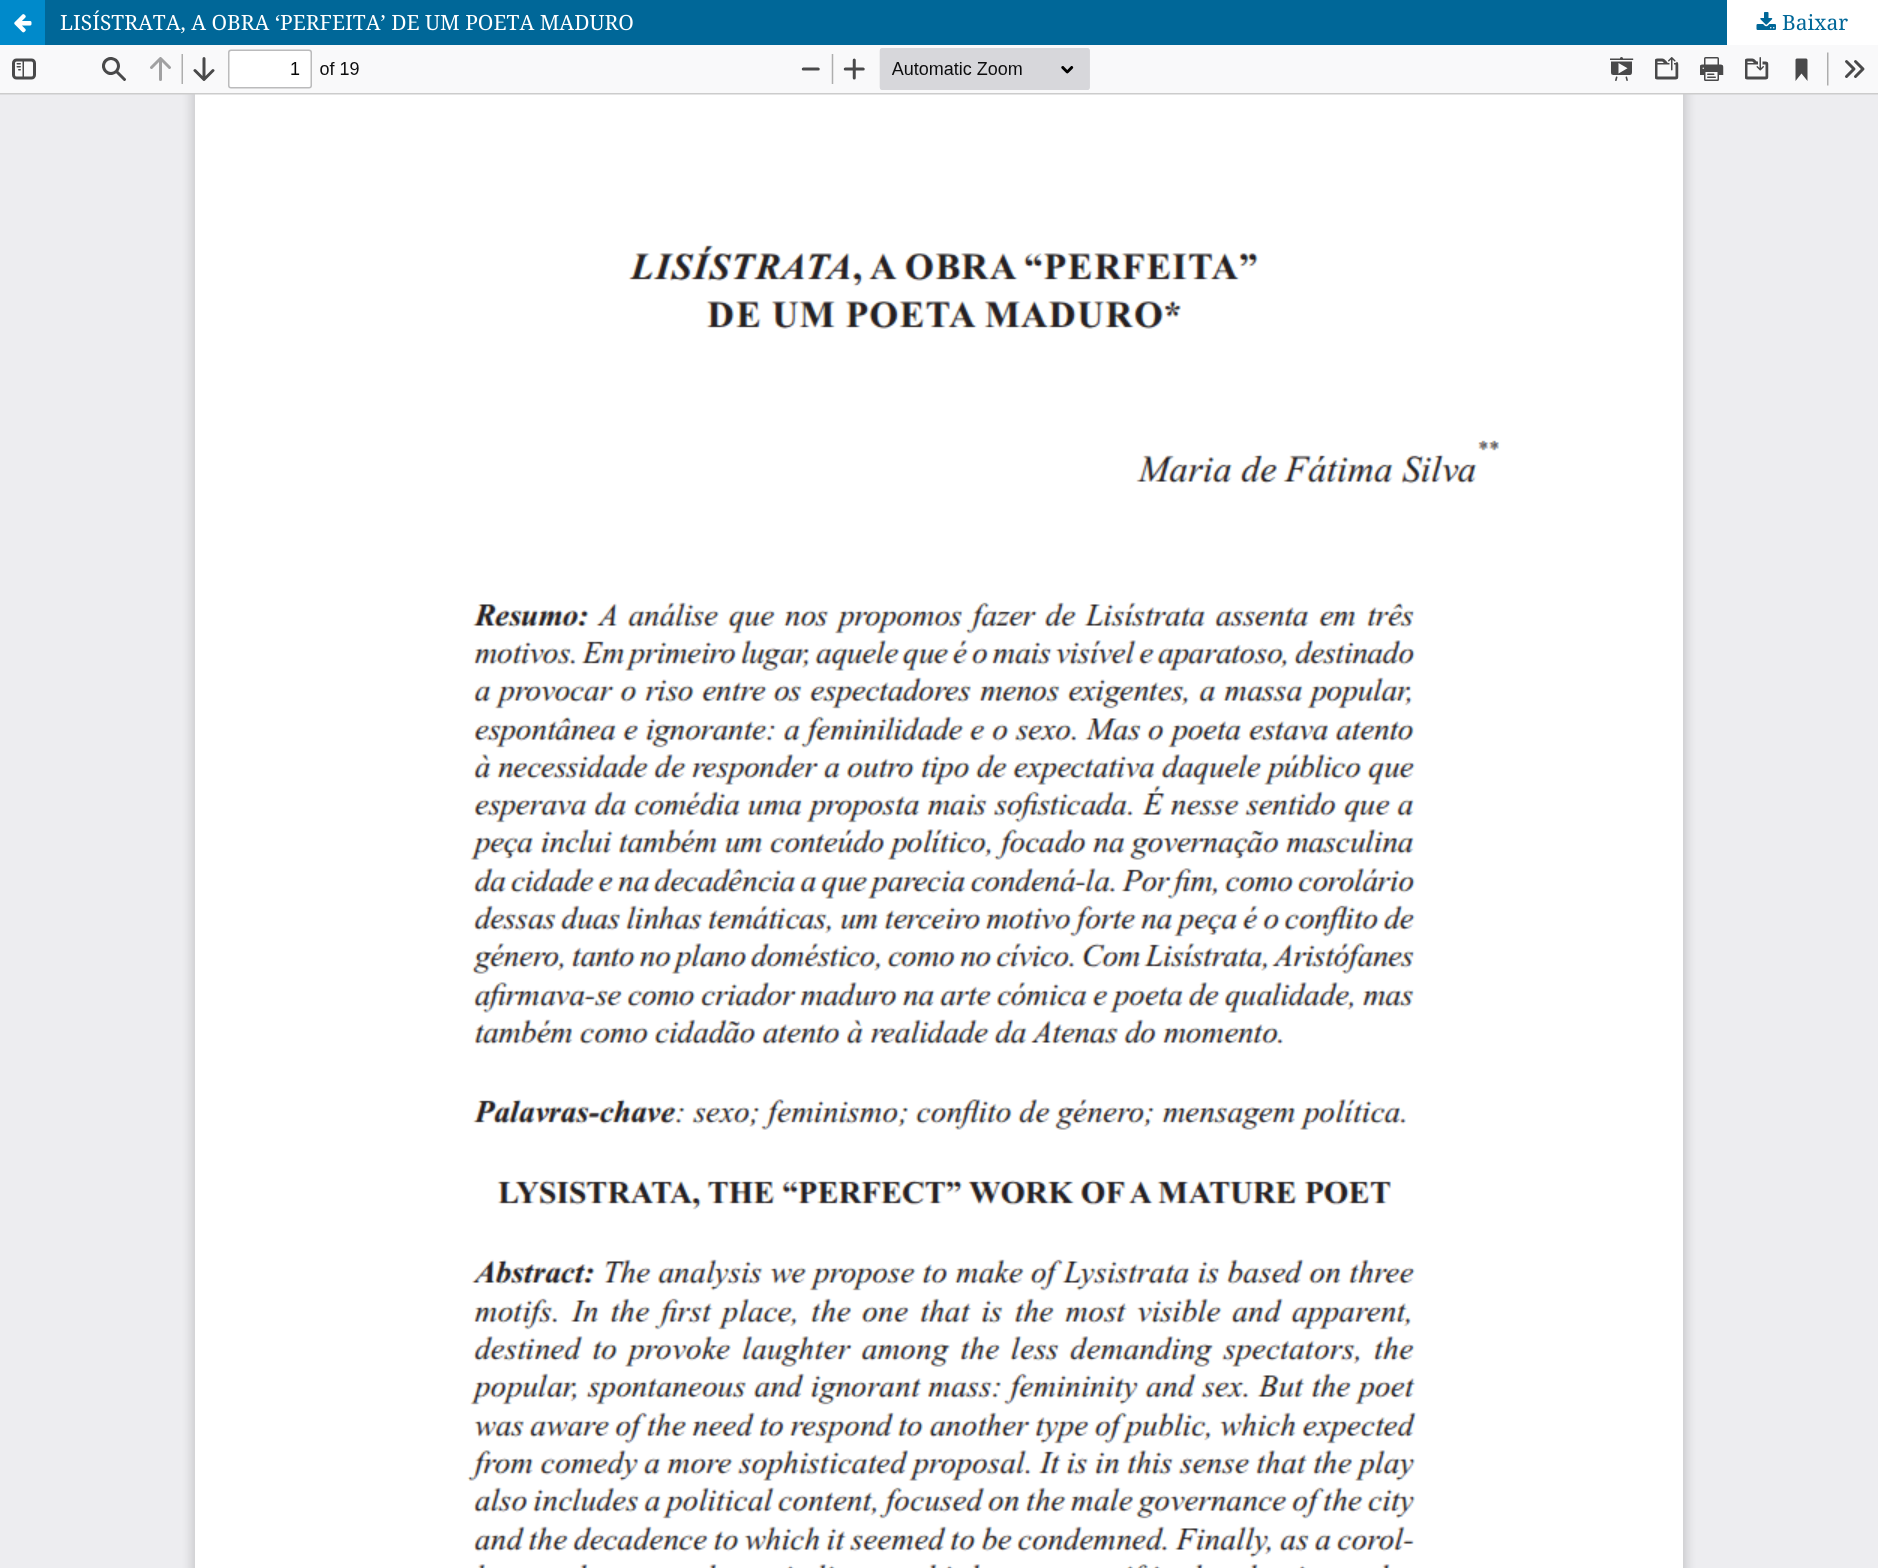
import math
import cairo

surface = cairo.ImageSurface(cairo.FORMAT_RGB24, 1878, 1568)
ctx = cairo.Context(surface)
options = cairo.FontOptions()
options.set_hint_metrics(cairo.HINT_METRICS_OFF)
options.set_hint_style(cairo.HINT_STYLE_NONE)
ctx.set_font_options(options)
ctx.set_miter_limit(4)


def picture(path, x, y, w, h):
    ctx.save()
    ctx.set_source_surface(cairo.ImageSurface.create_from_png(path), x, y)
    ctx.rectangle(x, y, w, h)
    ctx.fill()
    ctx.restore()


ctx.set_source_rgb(1, 1, 1)
ctx.paint()
ctx.set_source_rgb(0, 0.404, 0.596)
ctx.rectangle(45, 0, 1682, 45)
ctx.fill()
ctx.set_source_rgb(0, 0.541, 0.796)
ctx.rectangle(0, 0, 45, 45)
ctx.fill()
picture("img1.png", 14, 14, 18, 19)
ctx.select_font_face("Noto Serif")
ctx.set_font_size(21)
ctx.set_source_rgb(1, 1, 1)
ctx.move_to(60, 30)
ctx.show_text("LISÍSTRATA, A OBRA ‘PERFEITA’ DE UM POETA MADURO")
picture("img2.png", 1756, 12, 20, 18)
ctx.set_source_rgb(0, 0.404, 0.596)
ctx.move_to(1782, 30)
ctx.show_text("Baixar")
picture("img3.png", 0, 45, 1878, 1523)
surface.write_to_png("page.png")
